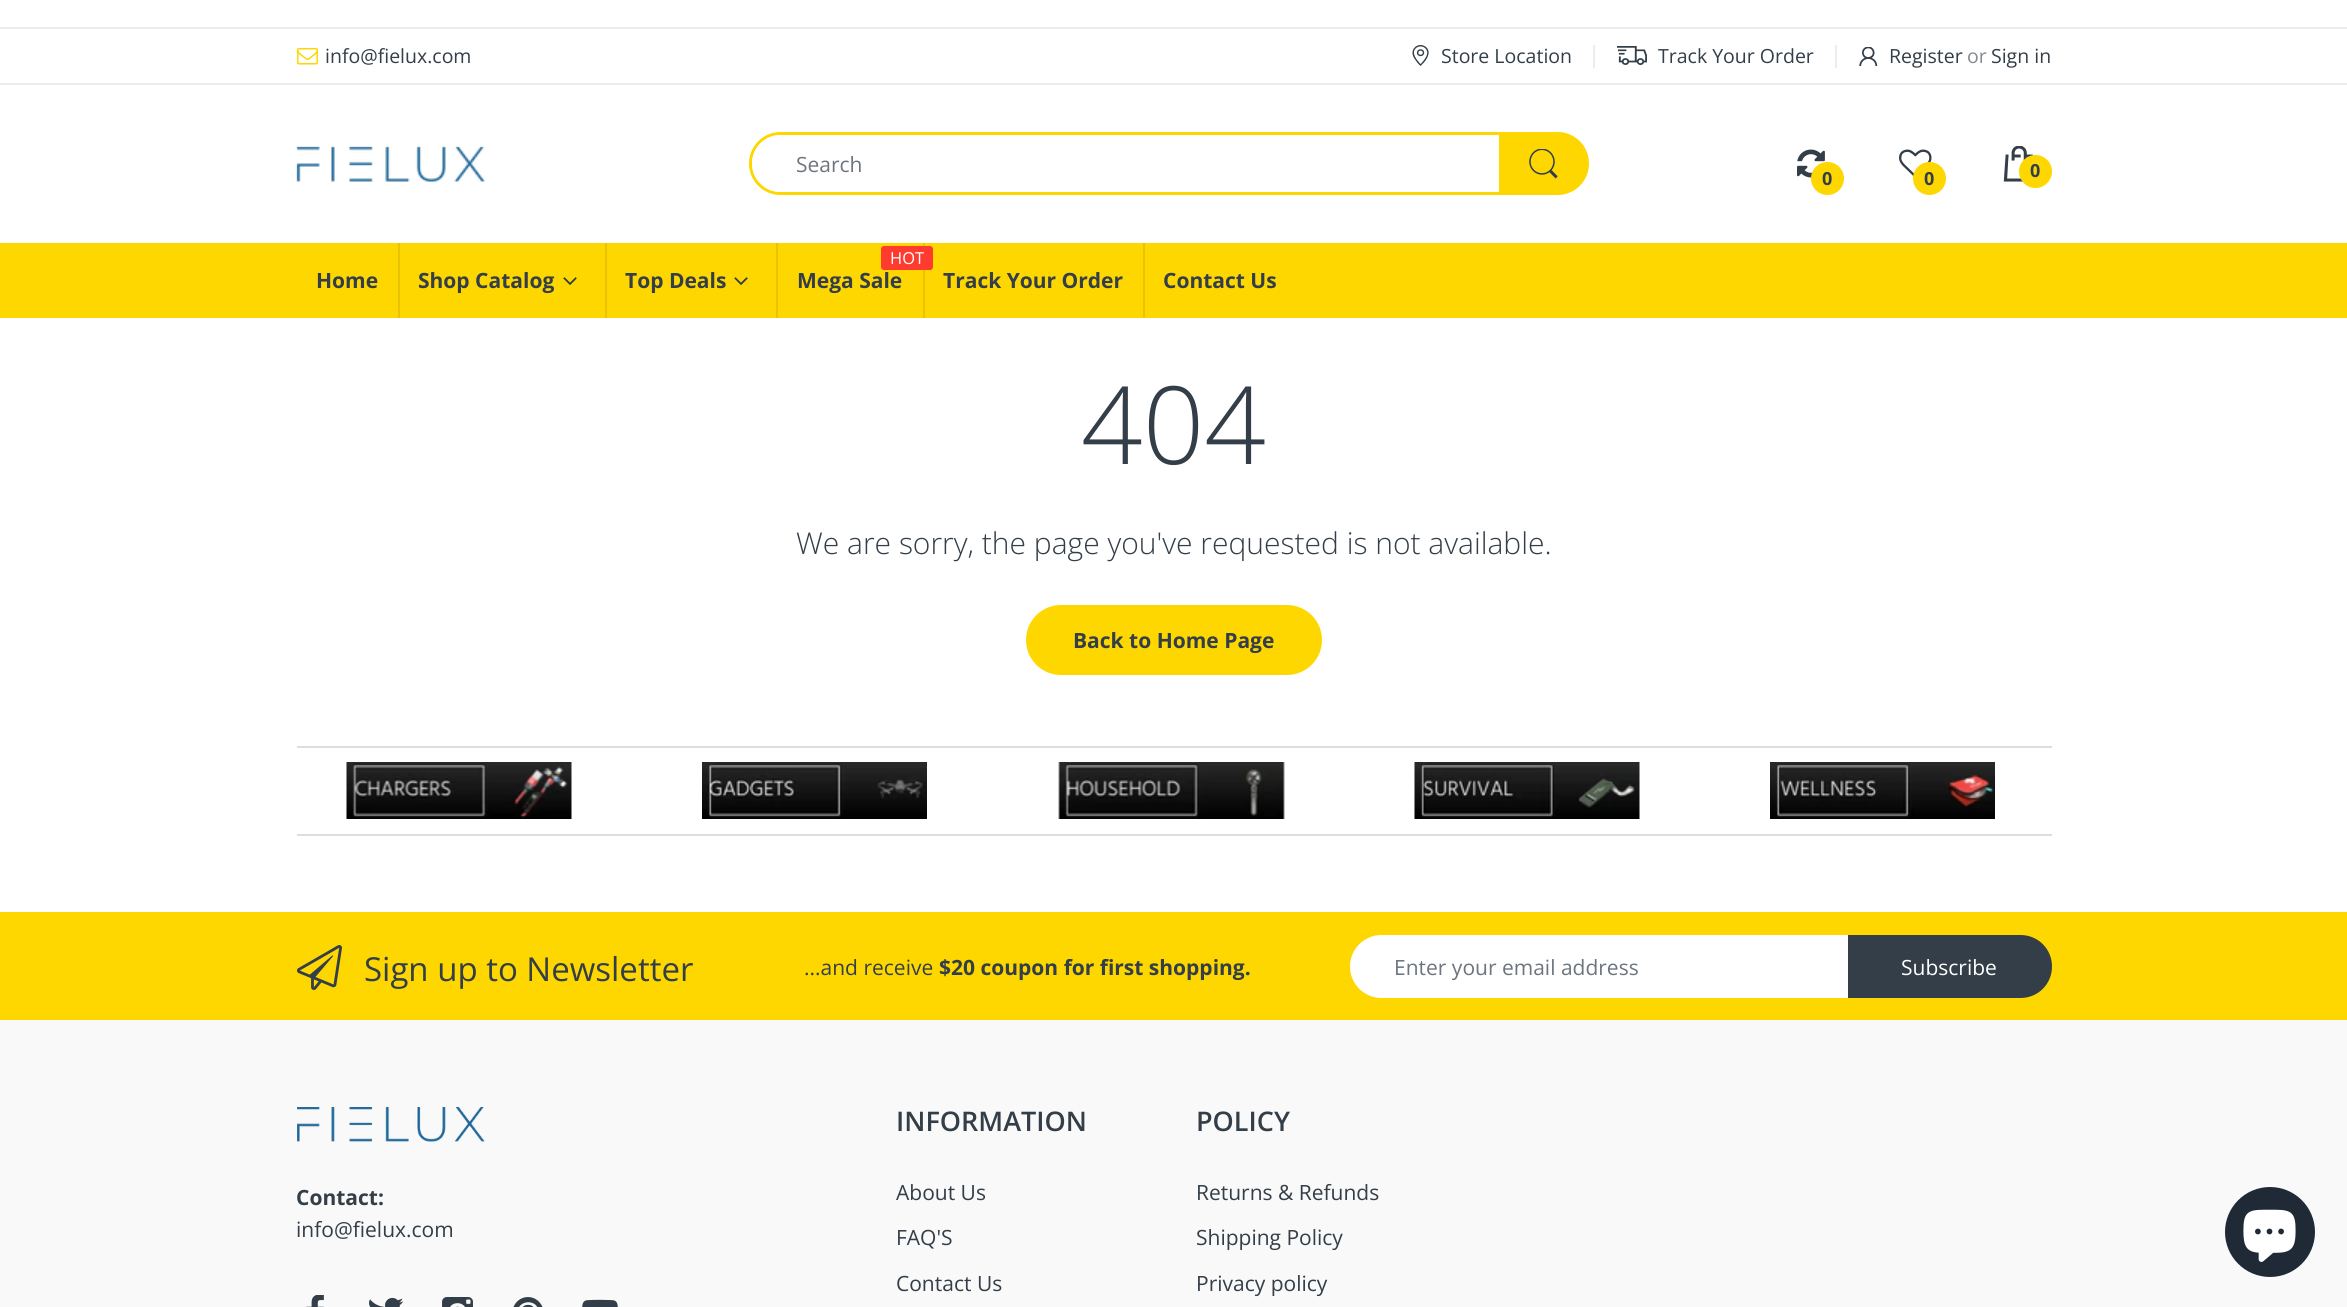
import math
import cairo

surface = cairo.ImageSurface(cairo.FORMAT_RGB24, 2347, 1307)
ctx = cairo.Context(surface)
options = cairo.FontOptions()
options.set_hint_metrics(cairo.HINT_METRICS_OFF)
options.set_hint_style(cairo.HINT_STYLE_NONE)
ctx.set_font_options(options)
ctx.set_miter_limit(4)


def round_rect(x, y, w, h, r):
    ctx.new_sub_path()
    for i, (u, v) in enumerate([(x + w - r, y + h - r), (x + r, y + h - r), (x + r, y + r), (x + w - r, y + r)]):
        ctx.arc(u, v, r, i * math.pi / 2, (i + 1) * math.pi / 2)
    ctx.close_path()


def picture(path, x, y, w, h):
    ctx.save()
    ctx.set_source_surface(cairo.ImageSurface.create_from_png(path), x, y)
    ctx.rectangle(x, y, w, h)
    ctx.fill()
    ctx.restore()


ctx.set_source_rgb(1, 1, 1)
ctx.paint()
ctx.set_source_rgb(0.922, 0.925, 0.929)
ctx.rectangle(0, 27, 2347, 2)
ctx.fill()
ctx.rectangle(0, 83, 2347, 2)
ctx.fill()
picture("img1.png", 297, 48, 21, 17)
ctx.select_font_face("Open Sans")
ctx.set_font_size(19.5)
ctx.set_source_rgb(0.2, 0.243, 0.282)
ctx.move_to(325, 63)
ctx.show_text("info@fielux.com")
picture("img2.png", 1412, 45, 17, 21)
ctx.move_to(1441, 63)
ctx.show_text("Store Location")
ctx.set_source_rgb(0.922, 0.925, 0.929)
ctx.rectangle(1593, 45, 2, 23)
ctx.fill()
picture("img3.png", 1617, 46, 30, 19)
ctx.set_source_rgb(0.2, 0.243, 0.282)
ctx.move_to(1658, 63)
ctx.show_text("Track Your Order")
ctx.set_source_rgb(0.922, 0.925, 0.929)
ctx.rectangle(1835, 45, 2, 23)
ctx.fill()
picture("img4.png", 1859, 47, 19, 19)
ctx.set_source_rgb(0.2, 0.243, 0.282)
ctx.move_to(1889, 63)
ctx.show_text("Register")
ctx.set_source_rgb(0.522, 0.545, 0.569)
ctx.move_to(1967, 63)
ctx.show_text("or")
ctx.set_source_rgb(0.2, 0.243, 0.282)
ctx.move_to(1991, 63)
ctx.show_text("Sign in")
picture("img5.png", 296, 146, 189, 36)
round_rect(750.5, 133.5, 835, 60, 30)
ctx.set_source_rgb(0.996, 0.843, 0)
ctx.set_line_width(3)
ctx.stroke()
ctx.set_source_rgb(1, 1, 1)
round_rect(752, 135, 832, 57, 28.5)
ctx.fill()
ctx.set_font_size(21)
ctx.set_source_rgb(0.424, 0.459, 0.49)
ctx.move_to(796, 172)
ctx.show_text("Search")
ctx.set_source_rgb(0.996, 0.843, 0)
ctx.new_path()
ctx.move_to(1499, 132)
ctx.line_to(1557.5, 132)
ctx.curve_to(1575, 132, 1589, 146, 1589, 163.5)
ctx.curve_to(1589, 181, 1575, 195, 1557.5, 195)
ctx.line_to(1499, 195)
ctx.close_path()
ctx.fill()
picture("img6.png", 1529, 149, 29, 30)
picture("img7.png", 1797, 149, 28, 29)
ctx.arc(1827.5, 178.5, 16.5, 0, 2 * math.pi)
ctx.fill()
ctx.select_font_face("Open Sans", cairo.FONT_SLANT_NORMAL, cairo.FONT_WEIGHT_BOLD)
ctx.set_font_size(18)
ctx.set_source_rgb(0.2, 0.243, 0.282)
ctx.move_to(1822, 185)
ctx.show_text("0")
picture("img8.png", 1899, 149, 33, 28)
ctx.set_source_rgb(0.996, 0.843, 0)
ctx.arc(1929.5, 178.5, 16.5, 0, 2 * math.pi)
ctx.fill()
ctx.set_source_rgb(0.2, 0.243, 0.282)
ctx.move_to(1924, 185)
ctx.show_text("0")
picture("img9.png", 2003, 146, 30, 36)
ctx.set_source_rgb(0.996, 0.843, 0)
ctx.arc(2035.5, 171.5, 16.5, 0, 2 * math.pi)
ctx.fill()
ctx.set_source_rgb(0.2, 0.243, 0.282)
ctx.move_to(2030, 177)
ctx.show_text("0")
ctx.set_source_rgb(0.996, 0.843, 0)
ctx.rectangle(0, 243, 2347, 75)
ctx.fill()
ctx.set_source_rgb(0.906, 0.765, 0)
ctx.rectangle(398, 243, 2, 75)
ctx.fill()
ctx.set_font_size(21)
ctx.set_source_rgb(0.2, 0.243, 0.282)
ctx.move_to(316, 288)
ctx.show_text("Home")
ctx.set_source_rgb(0.906, 0.765, 0)
ctx.rectangle(605, 243, 2, 75)
ctx.fill()
ctx.set_source_rgb(0.2, 0.243, 0.282)
ctx.move_to(418, 288)
ctx.show_text("Shop Catalog")
picture("img10.png", 563, 277, 14, 8)
ctx.set_source_rgb(0.906, 0.765, 0)
ctx.rectangle(776, 243, 2, 75)
ctx.fill()
ctx.set_source_rgb(0.2, 0.243, 0.282)
ctx.move_to(625, 288)
ctx.show_text("Top Deals")
picture("img10.png", 734, 277, 14, 8)
ctx.set_source_rgb(0.906, 0.765, 0)
ctx.rectangle(923, 243, 2, 75)
ctx.fill()
ctx.set_source_rgb(1, 0.231, 0.188)
round_rect(881, 246, 52, 24, 3)
ctx.fill()
ctx.select_font_face("Open Sans")
ctx.set_font_size(16.5)
ctx.set_source_rgb(1, 1, 1)
ctx.move_to(890, 264)
ctx.show_text("HOT")
ctx.select_font_face("Open Sans", cairo.FONT_SLANT_NORMAL, cairo.FONT_WEIGHT_BOLD)
ctx.set_font_size(21)
ctx.set_source_rgb(0.2, 0.243, 0.282)
ctx.move_to(797, 288)
ctx.show_text("Mega Sale")
ctx.set_source_rgb(0.906, 0.765, 0)
ctx.rectangle(1143, 243, 2, 75)
ctx.fill()
ctx.set_source_rgb(0.2, 0.243, 0.282)
ctx.move_to(943, 288)
ctx.show_text("Track Your Order")
ctx.move_to(1163, 288)
ctx.show_text("Contact Us")
ctx.select_font_face("Open Sans Light")
ctx.set_font_size(108)
ctx.move_to(1081, 464)
ctx.show_text("404")
ctx.set_font_size(30)
ctx.move_to(796, 554)
ctx.show_text("We are sorry, the page you've requested is not available.")
ctx.set_source_rgb(0.996, 0.843, 0)
round_rect(1027, 606, 294, 68, 34)
ctx.fill_preserve()
ctx.set_line_width(2)
ctx.stroke()
ctx.select_font_face("Open Sans", cairo.FONT_SLANT_NORMAL, cairo.FONT_WEIGHT_BOLD)
ctx.set_font_size(21)
ctx.set_source_rgb(0.2, 0.243, 0.282)
ctx.move_to(1073, 648)
ctx.show_text("Back to Home Page")
ctx.set_source_rgb(0.867, 0.867, 0.867)
ctx.rectangle(297, 746, 1755, 2)
ctx.fill()
ctx.rectangle(297, 834, 1755, 2)
ctx.fill()
picture("img11.png", 346, 762, 226, 57)
picture("img12.png", 702, 762, 225, 57)
picture("img13.png", 1058, 762, 227, 57)
picture("img14.png", 1414, 762, 226, 57)
picture("img15.png", 1770, 762, 225, 57)
ctx.set_source_rgb(0.996, 0.843, 0)
ctx.rectangle(0, 912, 2347, 108)
ctx.fill()
picture("img16.png", 297, 945, 45, 45)
ctx.select_font_face("Open Sans")
ctx.set_font_size(33)
ctx.set_source_rgb(0.2, 0.243, 0.282)
ctx.move_to(364, 981)
ctx.show_text("Sign up to Newsletter")
ctx.set_font_size(21)
ctx.move_to(804, 975)
ctx.show_text("...and receive")
ctx.select_font_face("Open Sans", cairo.FONT_SLANT_NORMAL, cairo.FONT_WEIGHT_BOLD)
ctx.move_to(939, 975)
ctx.show_text("$20 coupon for first shopping.")
ctx.set_source_rgb(1, 1, 1)
round_rect(1350, 935, 596, 63, 31.5)
ctx.fill()
ctx.select_font_face("Open Sans")
ctx.set_source_rgb(0.424, 0.459, 0.49)
ctx.move_to(1394, 975)
ctx.show_text("Enter your email address")
ctx.set_source_rgb(0.2, 0.243, 0.282)
ctx.new_path()
ctx.move_to(1849, 936)
ctx.line_to(2020.5, 936)
ctx.curve_to(2037.5, 936, 2051, 949.5, 2051, 966.5)
ctx.curve_to(2051, 983.5, 2037.5, 997, 2020.5, 997)
ctx.line_to(1849, 997)
ctx.close_path()
ctx.fill_preserve()
ctx.stroke()
ctx.set_source_rgb(1, 1, 1)
ctx.move_to(1901, 975)
ctx.show_text("Subscribe")
ctx.set_source_rgb(0.973, 0.973, 0.973)
ctx.rectangle(0, 1020, 2347, 287)
ctx.fill()
picture("img17.png", 297, 1107, 188, 35)
ctx.select_font_face("Open Sans", cairo.FONT_SLANT_NORMAL, cairo.FONT_WEIGHT_BOLD)
ctx.set_source_rgb(0.2, 0.243, 0.282)
ctx.move_to(296, 1205)
ctx.show_text("Contact:")
ctx.select_font_face("Open Sans")
ctx.move_to(296, 1237)
ctx.show_text("info@fielux.com")
picture("img18.png", 306, 1295, 18, 12)
picture("img19.png", 369, 1297, 35, 10)
picture("img20.png", 442, 1297, 31, 10)
picture("img21.png", 513, 1297, 30, 10)
picture("img22.png", 582, 1299, 36, 8)
ctx.select_font_face("Open Sans SemiBold")
ctx.set_font_size(27)
ctx.move_to(896, 1131)
ctx.show_text("INFORMATION")
ctx.select_font_face("Open Sans")
ctx.set_font_size(21)
ctx.move_to(896, 1200)
ctx.show_text("About Us")
ctx.move_to(896, 1245)
ctx.show_text("FAQ'S")
ctx.move_to(896, 1291)
ctx.show_text("Contact Us")
ctx.select_font_face("Open Sans SemiBold")
ctx.set_font_size(27)
ctx.move_to(1196, 1131)
ctx.show_text("POLICY")
ctx.select_font_face("Open Sans")
ctx.set_font_size(21)
ctx.move_to(1196, 1200)
ctx.show_text("Returns & Refunds")
ctx.move_to(1196, 1245)
ctx.show_text("Shipping Policy")
ctx.move_to(1196, 1291)
ctx.show_text("Privacy policy")
ctx.set_source_rgb(0.125, 0.165, 0.212)
ctx.new_path()
ctx.arc(2270, 1232, 45, 0, 2 * math.pi)
ctx.fill()
picture("img23.png", 2243, 1209, 53, 53)
surface.write_to_png("page.png")
